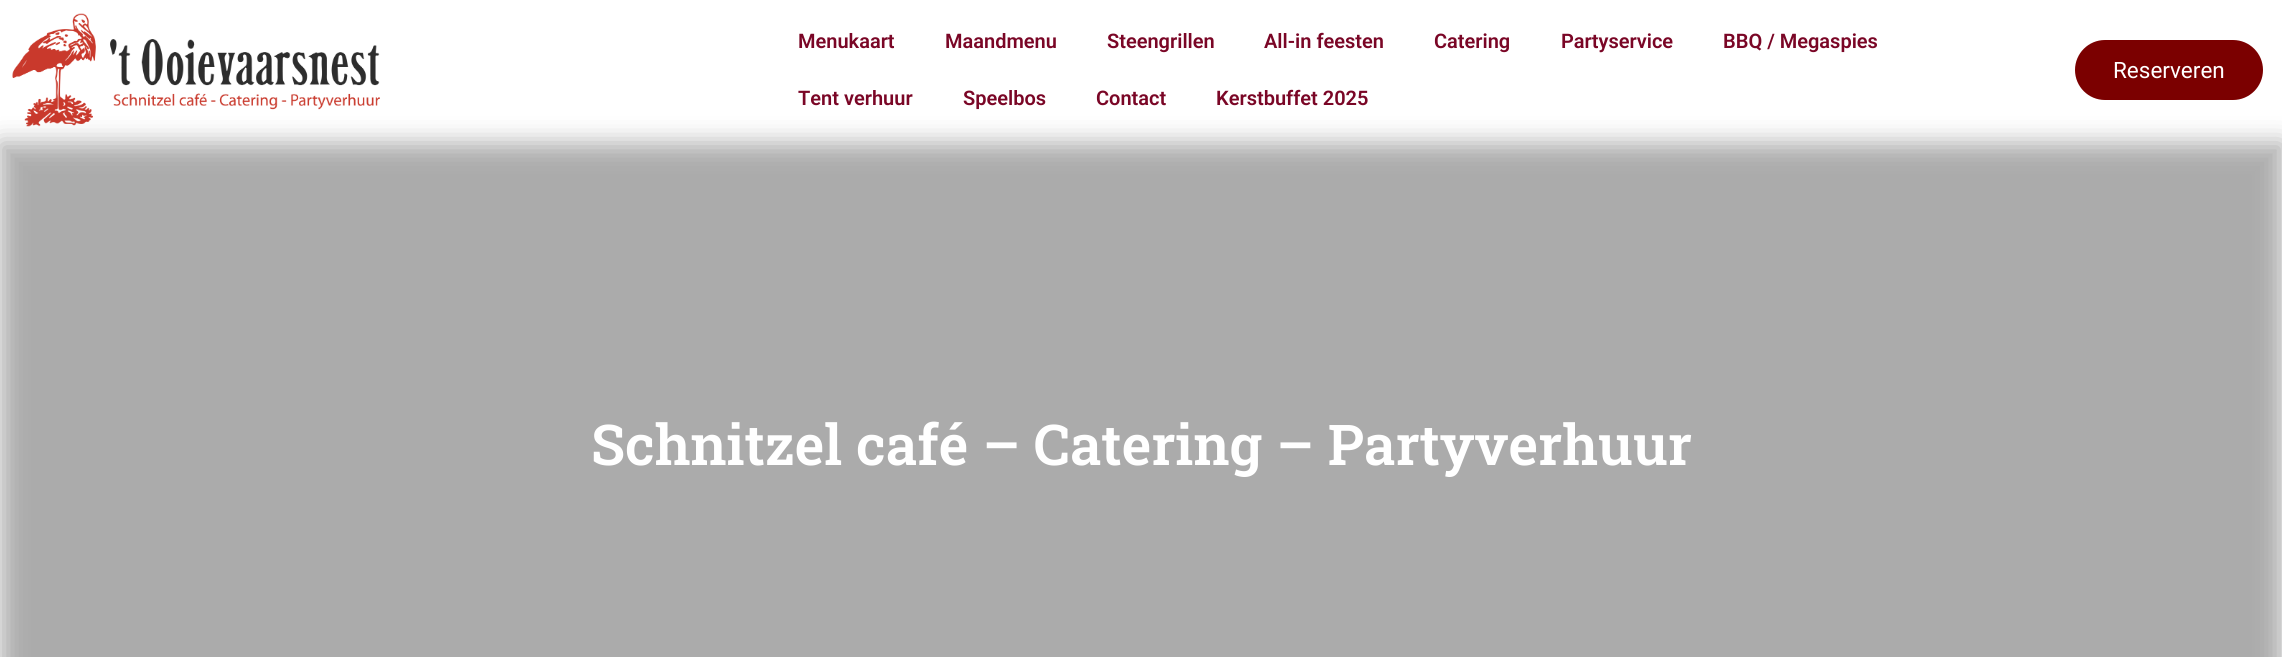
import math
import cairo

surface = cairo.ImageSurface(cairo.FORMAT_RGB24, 2282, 657)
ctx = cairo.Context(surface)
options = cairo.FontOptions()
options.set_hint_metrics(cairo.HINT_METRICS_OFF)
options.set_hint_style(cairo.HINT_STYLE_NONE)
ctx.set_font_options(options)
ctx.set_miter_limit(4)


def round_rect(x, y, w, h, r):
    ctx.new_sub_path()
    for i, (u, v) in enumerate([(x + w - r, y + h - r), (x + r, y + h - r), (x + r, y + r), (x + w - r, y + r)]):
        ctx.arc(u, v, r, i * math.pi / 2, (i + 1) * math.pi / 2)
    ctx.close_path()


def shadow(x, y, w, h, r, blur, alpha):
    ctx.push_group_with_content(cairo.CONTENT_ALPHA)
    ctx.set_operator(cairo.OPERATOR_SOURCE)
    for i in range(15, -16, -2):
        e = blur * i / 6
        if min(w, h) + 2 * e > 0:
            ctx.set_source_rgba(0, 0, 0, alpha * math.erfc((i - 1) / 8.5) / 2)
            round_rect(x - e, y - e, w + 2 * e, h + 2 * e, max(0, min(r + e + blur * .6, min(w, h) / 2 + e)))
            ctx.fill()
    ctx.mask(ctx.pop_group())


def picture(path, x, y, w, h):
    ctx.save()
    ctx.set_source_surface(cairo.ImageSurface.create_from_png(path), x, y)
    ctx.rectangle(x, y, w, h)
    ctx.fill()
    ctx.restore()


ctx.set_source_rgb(1, 1, 1)
ctx.paint()
picture("img1.png", 12, 13, 368, 114)
ctx.select_font_face("Roboto SemiBold")
ctx.set_font_size(20)
ctx.set_source_rgb(0.478, 0.027, 0.149)
ctx.move_to(798, 48)
ctx.show_text("Menukaart")
ctx.move_to(945, 48)
ctx.show_text("Maandmenu")
ctx.move_to(1107, 48)
ctx.show_text("Steengrillen")
ctx.move_to(1264, 48)
ctx.show_text("All-in feesten")
ctx.move_to(1434, 48)
ctx.show_text("Catering")
ctx.move_to(1561, 48)
ctx.show_text("Partyservice")
ctx.move_to(1723, 48)
ctx.show_text("BBQ / Megaspies")
ctx.set_source_rgb(0, 0, 0)
shadow(0, 143, 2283, 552, 0, 12.5, 0.33)
ctx.set_source_rgb(0.478, 0.027, 0.149)
ctx.move_to(798, 105)
ctx.show_text("Tent verhuur")
ctx.move_to(963, 105)
ctx.show_text("Speelbos")
ctx.move_to(1096, 105)
ctx.show_text("Contact")
ctx.move_to(1216, 105)
ctx.show_text("Kerstbuffet 2025")
ctx.set_source_rgb(0.482, 0, 0)
round_rect(2075, 40, 188, 60, 30)
ctx.fill()
ctx.select_font_face("Roboto")
ctx.set_font_size(22.5)
ctx.set_source_rgb(1, 1, 1)
ctx.move_to(2113, 78)
ctx.show_text("Reserveren")
ctx.select_font_face("Roboto Slab SemiBold")
ctx.set_font_size(56.25)
ctx.move_to(591, 465)
ctx.show_text("Schnitzel café – Catering – Partyverhuur")
surface.write_to_png("page.png")
